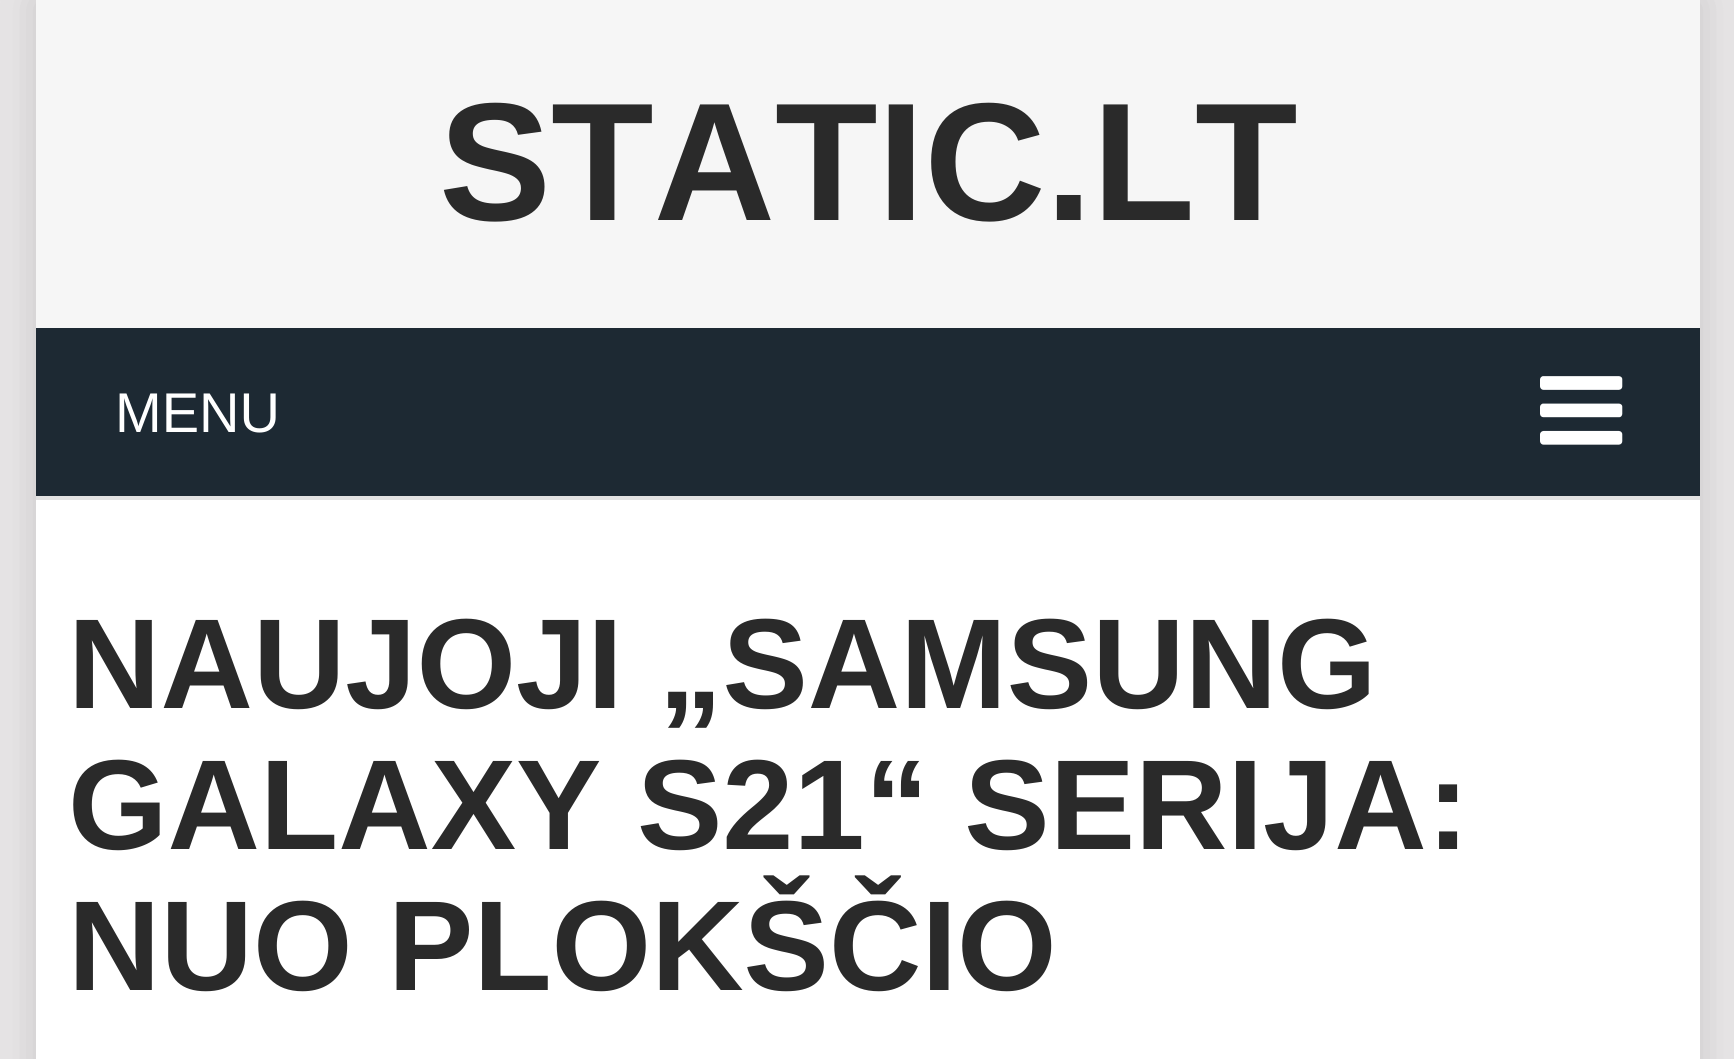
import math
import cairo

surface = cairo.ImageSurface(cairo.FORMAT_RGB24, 1734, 1059)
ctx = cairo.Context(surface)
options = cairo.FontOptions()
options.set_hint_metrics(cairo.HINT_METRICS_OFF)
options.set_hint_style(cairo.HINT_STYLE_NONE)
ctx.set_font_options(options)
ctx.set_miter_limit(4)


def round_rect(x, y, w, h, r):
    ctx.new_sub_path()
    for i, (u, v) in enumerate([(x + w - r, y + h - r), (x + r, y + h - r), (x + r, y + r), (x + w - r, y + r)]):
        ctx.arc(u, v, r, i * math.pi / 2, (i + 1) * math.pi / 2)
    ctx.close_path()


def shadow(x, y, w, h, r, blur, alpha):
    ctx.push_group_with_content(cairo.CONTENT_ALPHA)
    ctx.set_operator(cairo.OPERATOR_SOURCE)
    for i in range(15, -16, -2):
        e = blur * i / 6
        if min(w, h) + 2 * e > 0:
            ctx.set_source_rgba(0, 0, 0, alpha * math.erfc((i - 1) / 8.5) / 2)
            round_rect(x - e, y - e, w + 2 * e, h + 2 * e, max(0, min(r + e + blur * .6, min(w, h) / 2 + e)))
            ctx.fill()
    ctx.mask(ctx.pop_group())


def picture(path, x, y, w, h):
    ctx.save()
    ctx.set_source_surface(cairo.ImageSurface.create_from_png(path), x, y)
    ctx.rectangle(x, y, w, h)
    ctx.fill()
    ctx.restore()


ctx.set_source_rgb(0.906, 0.898, 0.902)
ctx.paint()
ctx.set_source_rgb(0.196, 0.196, 0.196)
shadow(36, 0, 1664, 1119, 0, 20, 0.17)
ctx.set_source_rgb(1, 1, 1)
ctx.rectangle(36, 500, 1664, 559)
ctx.fill()
ctx.set_source_rgb(0.961, 0.961, 0.961)
ctx.rectangle(36, 0, 1664, 328)
ctx.fill()
ctx.select_font_face("Liberation Sans", cairo.FONT_SLANT_NORMAL, cairo.FONT_WEIGHT_BOLD)
ctx.set_font_size(168)
ctx.set_source_rgb(0.165, 0.165, 0.165)
ctx.move_to(439, 220)
ctx.show_text("STATIC.LT")
ctx.set_source_rgb(0.114, 0.161, 0.2)
ctx.rectangle(36, 328, 1664, 168)
ctx.fill()
ctx.select_font_face("Liberation Sans")
ctx.set_font_size(56)
ctx.set_source_rgb(1, 1, 1)
ctx.move_to(115, 432)
ctx.show_text("MENU")
picture("img1.png", 1540, 376, 83, 69)
ctx.set_source_rgb(0.886, 0.886, 0.886)
ctx.rectangle(36, 496, 1664, 4)
ctx.fill()
ctx.select_font_face("Liberation Sans", cairo.FONT_SLANT_NORMAL, cairo.FONT_WEIGHT_BOLD)
ctx.set_font_size(128)
ctx.set_source_rgb(0.165, 0.165, 0.165)
ctx.move_to(68, 708)
ctx.show_text("NAUJOJI „SAMSUNG")
ctx.move_to(68, 849)
ctx.show_text("GALAXY S21“ SERIJA:")
ctx.move_to(68, 990)
ctx.show_text("NUO PLOKŠČIO")
surface.write_to_png("page.png")
